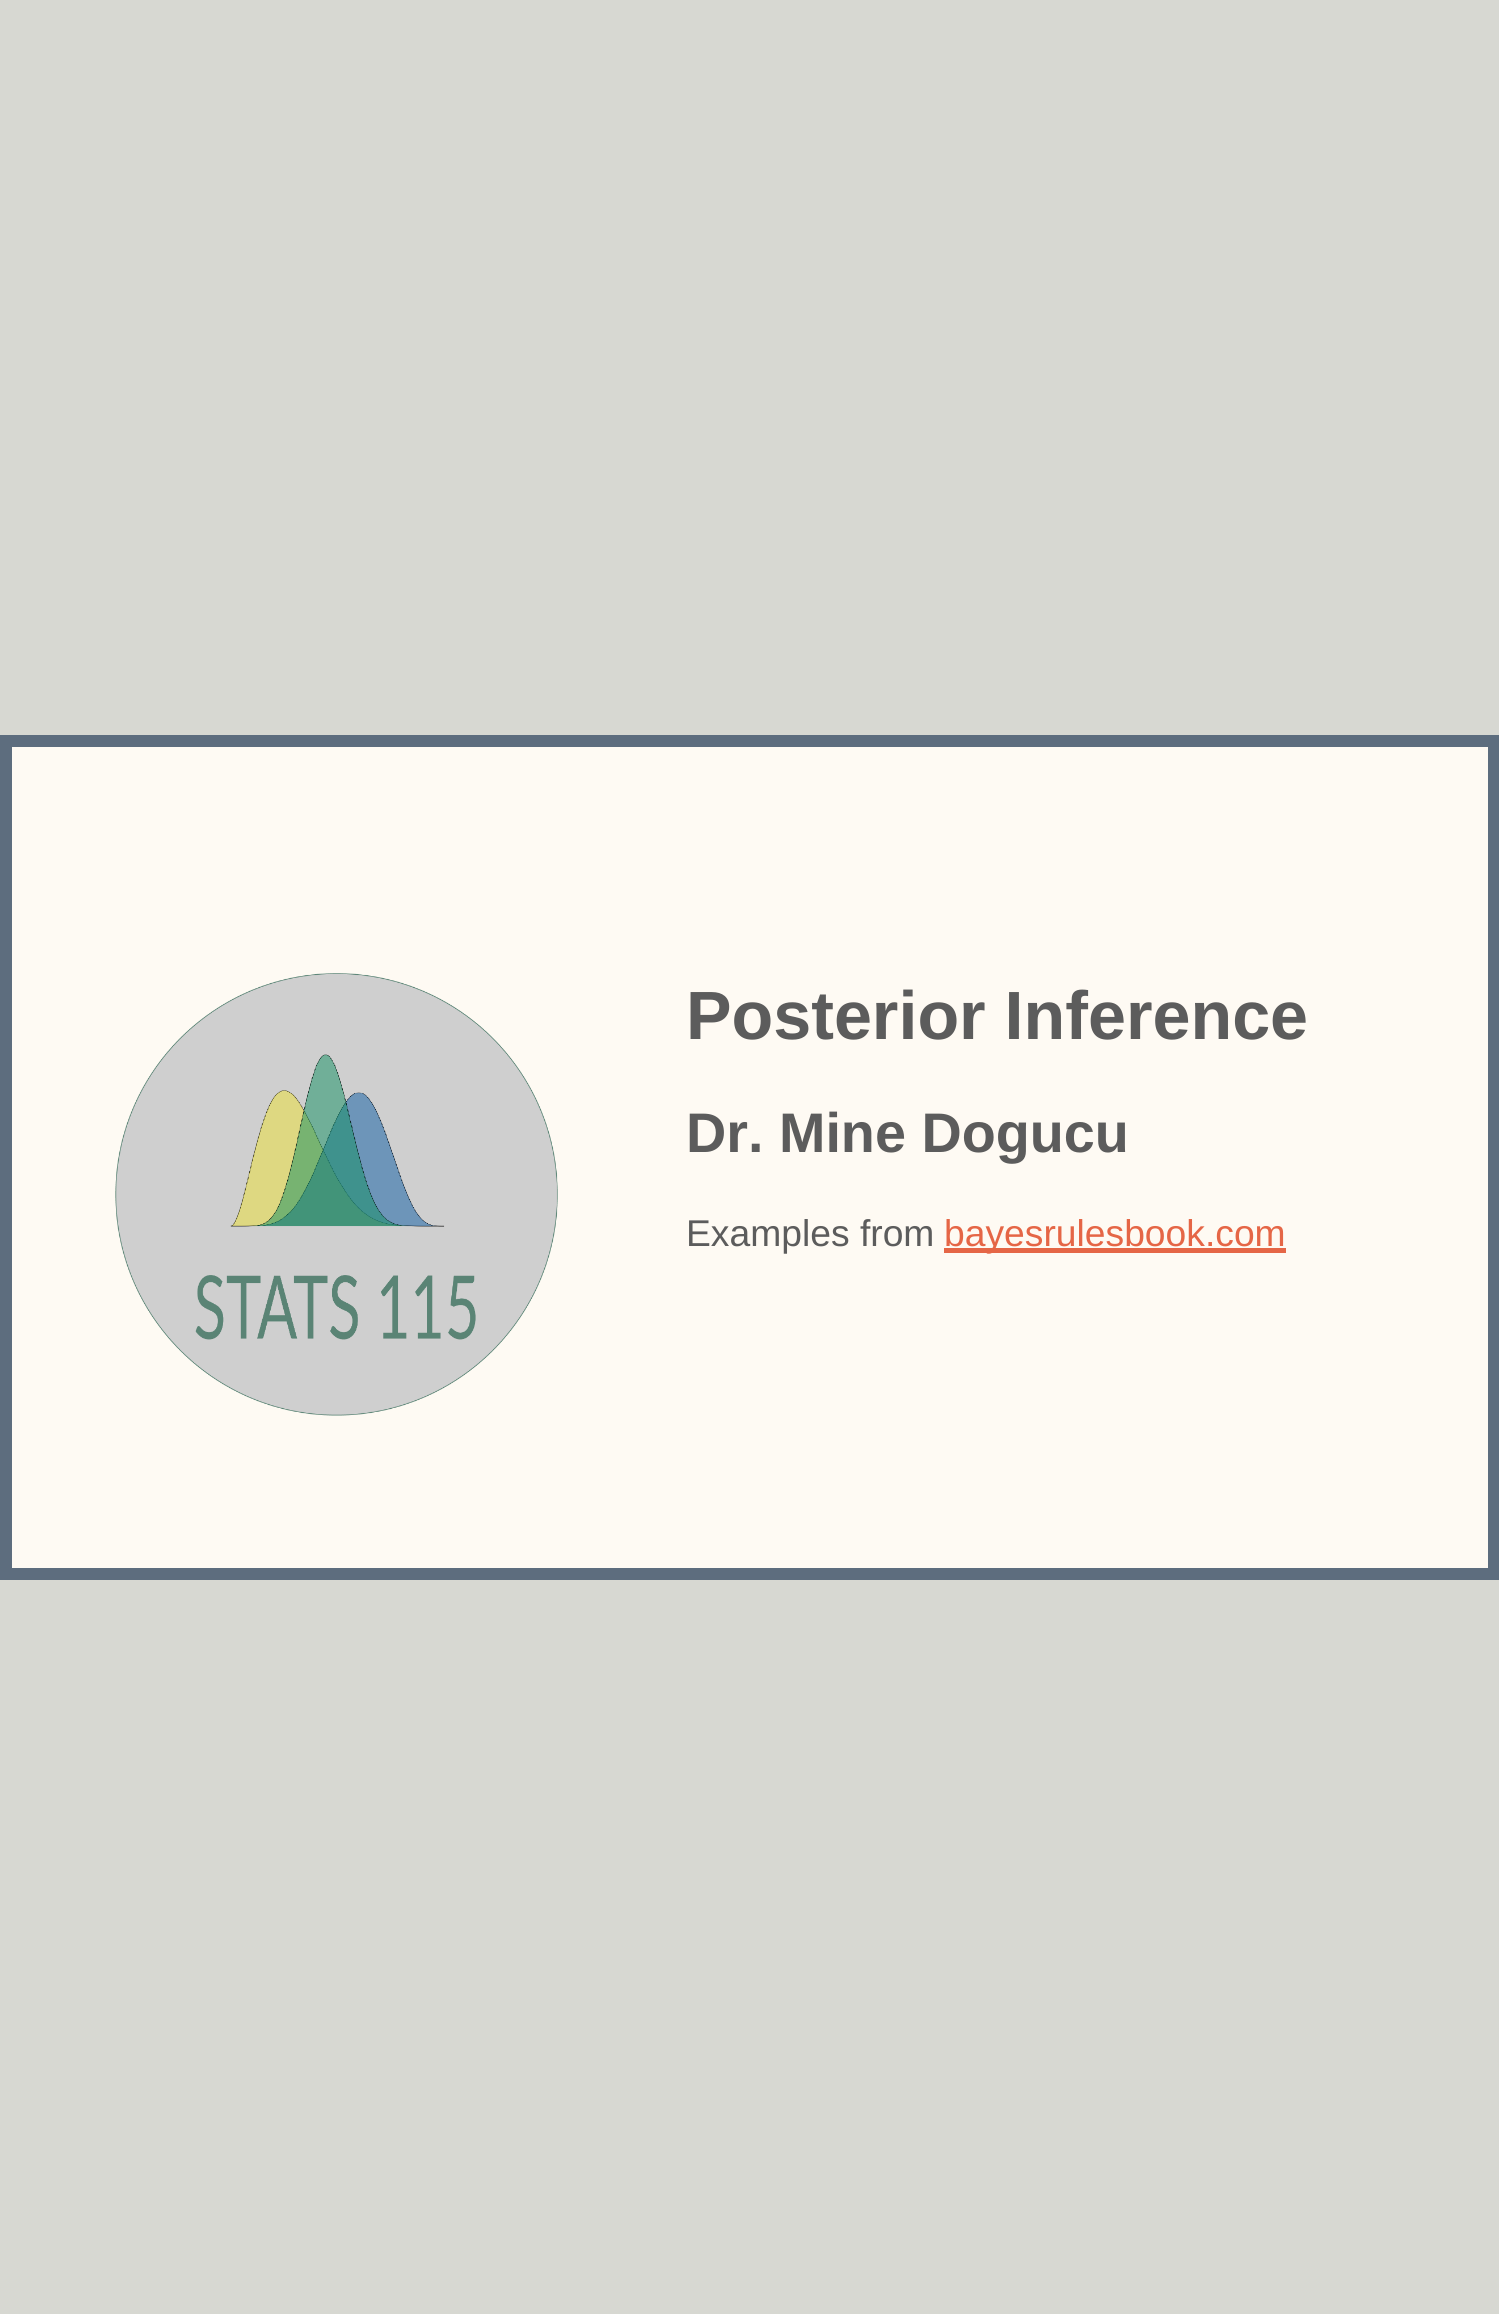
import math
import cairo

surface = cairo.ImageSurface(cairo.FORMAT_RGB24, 1499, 2314)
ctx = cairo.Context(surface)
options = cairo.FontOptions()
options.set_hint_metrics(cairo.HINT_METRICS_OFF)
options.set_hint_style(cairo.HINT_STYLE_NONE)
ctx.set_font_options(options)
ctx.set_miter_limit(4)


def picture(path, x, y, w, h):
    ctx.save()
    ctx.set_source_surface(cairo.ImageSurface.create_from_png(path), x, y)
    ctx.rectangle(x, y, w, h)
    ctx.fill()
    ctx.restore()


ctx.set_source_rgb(0.843, 0.847, 0.824)
ctx.paint()
ctx.set_source_rgb(0.996, 0.98, 0.953)
ctx.rectangle(12, 747, 1476, 821)
ctx.fill()
picture("img1.png", 115, 973, 443, 443)
ctx.rectangle(6, 741, 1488, 833)
ctx.set_source_rgb(0.365, 0.427, 0.494)
ctx.set_line_width(12)
ctx.stroke()
ctx.select_font_face("Liberation Sans", cairo.FONT_SLANT_NORMAL, cairo.FONT_WEIGHT_BOLD)
ctx.set_font_size(68.25)
ctx.set_source_rgb(0.361, 0.361, 0.361)
ctx.move_to(686, 1039)
ctx.show_text("Posterior Inference")
ctx.set_font_size(55.75)
ctx.move_to(686, 1152)
ctx.show_text("Dr. Mine Dogucu")
ctx.select_font_face("Liberation Sans")
ctx.set_font_size(37.25)
ctx.move_to(686, 1246)
ctx.show_text("Examples from")
ctx.set_source_rgb(0.898, 0.4, 0.275)
ctx.rectangle(944, 1248, 342, 5)
ctx.fill()
ctx.move_to(944, 1246)
ctx.show_text("bayesrulesbook.com")
surface.write_to_png("page.png")
